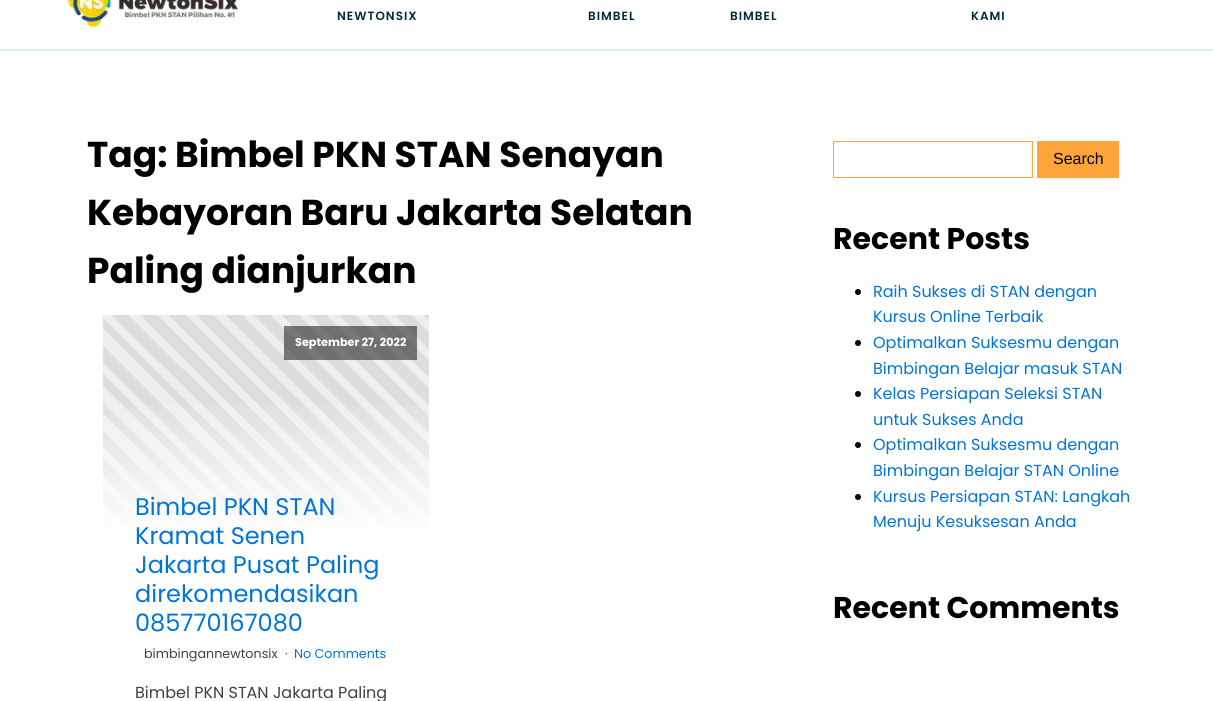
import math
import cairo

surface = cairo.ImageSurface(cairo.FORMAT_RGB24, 1213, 701)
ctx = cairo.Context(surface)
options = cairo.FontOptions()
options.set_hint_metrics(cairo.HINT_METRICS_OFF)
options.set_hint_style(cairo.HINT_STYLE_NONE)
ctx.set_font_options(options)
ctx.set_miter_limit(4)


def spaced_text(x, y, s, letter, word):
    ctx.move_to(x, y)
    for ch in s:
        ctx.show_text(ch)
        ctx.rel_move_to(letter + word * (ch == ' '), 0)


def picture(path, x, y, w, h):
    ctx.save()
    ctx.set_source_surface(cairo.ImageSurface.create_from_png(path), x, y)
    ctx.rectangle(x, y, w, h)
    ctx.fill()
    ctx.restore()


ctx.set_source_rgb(1, 1, 1)
ctx.paint()
ctx.set_source_rgb(0.859, 0.929, 0.965)
ctx.rectangle(0, 49, 1213, 2)
ctx.fill()
picture("img1.png", 67, 0, 171, 28)
ctx.select_font_face("Poppins SemiBold")
ctx.set_font_size(12)
ctx.set_source_rgb(0, 0.169, 0.239)
spaced_text(337, 20, "NEWTONSIX", 1, 0)
spaced_text(588, 20, "BIMBEL", 1, 0)
spaced_text(730, 20, "BIMBEL", 1, 0)
spaced_text(971, 20, "KAMI", 1, 0)
ctx.select_font_face("Poppins", cairo.FONT_SLANT_NORMAL, cairo.FONT_WEIGHT_BOLD)
ctx.set_font_size(36)
ctx.set_source_rgb(0, 0, 0)
ctx.move_to(87, 167)
ctx.show_text("Tag: Bimbel PKN STAN Senayan")
ctx.move_to(87, 225)
ctx.show_text("Kebayoran Baru Jakarta Selatan")
ctx.move_to(87, 283)
ctx.show_text("Paling dianjurkan")
gradient = cairo.LinearGradient(128, 568, 410, 285)
gradient.add_color_stop_rgba(0, 0.933, 0.933, 0.933, 1)
gradient.add_color_stop_rgba(0.02, 0.933, 0.933, 0.933, 1)
gradient.add_color_stop_rgba(0.02, 0.867, 0.867, 0.867, 1)
gradient.add_color_stop_rgba(0.05, 0.867, 0.867, 0.867, 1)
gradient.add_color_stop_rgba(0.05, 0.933, 0.933, 0.933, 1)
gradient.add_color_stop_rgba(0.07, 0.933, 0.933, 0.933, 1)
gradient.add_color_stop_rgba(0.07, 0.867, 0.867, 0.867, 1)
gradient.add_color_stop_rgba(0.1, 0.867, 0.867, 0.867, 1)
gradient.add_color_stop_rgba(0.1, 0.933, 0.933, 0.933, 1)
gradient.add_color_stop_rgba(0.12, 0.933, 0.933, 0.933, 1)
gradient.add_color_stop_rgba(0.12, 0.867, 0.867, 0.867, 1)
gradient.add_color_stop_rgba(0.15, 0.867, 0.867, 0.867, 1)
gradient.add_color_stop_rgba(0.15, 0.933, 0.933, 0.933, 1)
gradient.add_color_stop_rgba(0.17, 0.933, 0.933, 0.933, 1)
gradient.add_color_stop_rgba(0.17, 0.867, 0.867, 0.867, 1)
gradient.add_color_stop_rgba(0.2, 0.867, 0.867, 0.867, 1)
gradient.add_color_stop_rgba(0.2, 0.933, 0.933, 0.933, 1)
gradient.add_color_stop_rgba(0.23, 0.933, 0.933, 0.933, 1)
gradient.add_color_stop_rgba(0.23, 0.867, 0.867, 0.867, 1)
gradient.add_color_stop_rgba(0.25, 0.867, 0.867, 0.867, 1)
gradient.add_color_stop_rgba(0.25, 0.933, 0.933, 0.933, 1)
gradient.add_color_stop_rgba(0.28, 0.933, 0.933, 0.933, 1)
gradient.add_color_stop_rgba(0.28, 0.867, 0.867, 0.867, 1)
gradient.add_color_stop_rgba(0.3, 0.867, 0.867, 0.867, 1)
gradient.add_color_stop_rgba(0.3, 0.933, 0.933, 0.933, 1)
gradient.add_color_stop_rgba(0.32, 0.933, 0.933, 0.933, 1)
gradient.add_color_stop_rgba(0.32, 0.867, 0.867, 0.867, 1)
gradient.add_color_stop_rgba(0.35, 0.867, 0.867, 0.867, 1)
gradient.add_color_stop_rgba(0.35, 0.933, 0.933, 0.933, 1)
gradient.add_color_stop_rgba(0.38, 0.933, 0.933, 0.933, 1)
gradient.add_color_stop_rgba(0.38, 0.867, 0.867, 0.867, 1)
gradient.add_color_stop_rgba(0.4, 0.867, 0.867, 0.867, 1)
gradient.add_color_stop_rgba(0.4, 0.933, 0.933, 0.933, 1)
gradient.add_color_stop_rgba(0.42, 0.933, 0.933, 0.933, 1)
gradient.add_color_stop_rgba(0.42, 0.867, 0.867, 0.867, 1)
gradient.add_color_stop_rgba(0.45, 0.867, 0.867, 0.867, 1)
gradient.add_color_stop_rgba(0.45, 0.933, 0.933, 0.933, 1)
gradient.add_color_stop_rgba(0.47, 0.933, 0.933, 0.933, 1)
gradient.add_color_stop_rgba(0.47, 0.867, 0.867, 0.867, 1)
gradient.add_color_stop_rgba(0.5, 0.867, 0.867, 0.867, 1)
gradient.add_color_stop_rgba(0.5, 0.933, 0.933, 0.933, 1)
gradient.add_color_stop_rgba(0.52, 0.933, 0.933, 0.933, 1)
gradient.add_color_stop_rgba(0.52, 0.867, 0.867, 0.867, 1)
gradient.add_color_stop_rgba(0.55, 0.867, 0.867, 0.867, 1)
gradient.add_color_stop_rgba(0.55, 0.933, 0.933, 0.933, 1)
gradient.add_color_stop_rgba(0.57, 0.933, 0.933, 0.933, 1)
gradient.add_color_stop_rgba(0.57, 0.867, 0.867, 0.867, 1)
gradient.add_color_stop_rgba(0.6, 0.867, 0.867, 0.867, 1)
gradient.add_color_stop_rgba(0.6, 0.933, 0.933, 0.933, 1)
gradient.add_color_stop_rgba(0.62, 0.933, 0.933, 0.933, 1)
gradient.add_color_stop_rgba(0.62, 0.867, 0.867, 0.867, 1)
gradient.add_color_stop_rgba(0.65, 0.867, 0.867, 0.867, 1)
gradient.add_color_stop_rgba(0.65, 0.933, 0.933, 0.933, 1)
gradient.add_color_stop_rgba(0.67, 0.933, 0.933, 0.933, 1)
gradient.add_color_stop_rgba(0.67, 0.867, 0.867, 0.867, 1)
gradient.add_color_stop_rgba(0.7, 0.867, 0.867, 0.867, 1)
gradient.add_color_stop_rgba(0.7, 0.933, 0.933, 0.933, 1)
gradient.add_color_stop_rgba(0.72, 0.933, 0.933, 0.933, 1)
gradient.add_color_stop_rgba(0.72, 0.867, 0.867, 0.867, 1)
gradient.add_color_stop_rgba(0.75, 0.867, 0.867, 0.867, 1)
gradient.add_color_stop_rgba(0.75, 0.933, 0.933, 0.933, 1)
gradient.add_color_stop_rgba(0.77, 0.933, 0.933, 0.933, 1)
gradient.add_color_stop_rgba(0.77, 0.867, 0.867, 0.867, 1)
gradient.add_color_stop_rgba(0.8, 0.867, 0.867, 0.867, 1)
gradient.add_color_stop_rgba(0.8, 0.933, 0.933, 0.933, 1)
gradient.add_color_stop_rgba(0.82, 0.933, 0.933, 0.933, 1)
gradient.add_color_stop_rgba(0.82, 0.867, 0.867, 0.867, 1)
gradient.add_color_stop_rgba(0.85, 0.867, 0.867, 0.867, 1)
gradient.add_color_stop_rgba(0.85, 0.933, 0.933, 0.933, 1)
gradient.add_color_stop_rgba(0.87, 0.933, 0.933, 0.933, 1)
gradient.add_color_stop_rgba(0.87, 0.867, 0.867, 0.867, 1)
gradient.add_color_stop_rgba(0.9, 0.867, 0.867, 0.867, 1)
gradient.add_color_stop_rgba(0.9, 0.933, 0.933, 0.933, 1)
gradient.add_color_stop_rgba(0.92, 0.933, 0.933, 0.933, 1)
gradient.add_color_stop_rgba(0.92, 0.867, 0.867, 0.867, 1)
gradient.add_color_stop_rgba(0.95, 0.867, 0.867, 0.867, 1)
gradient.add_color_stop_rgba(0.95, 0.933, 0.933, 0.933, 1)
gradient.add_color_stop_rgba(0.97, 0.933, 0.933, 0.933, 1)
gradient.add_color_stop_rgba(0.97, 0.867, 0.867, 0.867, 1)
gradient.add_color_stop_rgba(1, 0.867, 0.867, 0.867, 1)
ctx.set_source(gradient)
ctx.rectangle(103, 315, 326, 224)
ctx.fill()
gradient = cairo.LinearGradient(128, 568, 410, 285)
gradient.add_color_stop_rgba(0, 0.467, 0.467, 0.467, 1)
gradient.add_color_stop_rgba(0.02, 0.467, 0.467, 0.467, 1)
gradient.add_color_stop_rgba(0.02, 0.435, 0.435, 0.435, 1)
gradient.add_color_stop_rgba(0.05, 0.435, 0.435, 0.435, 1)
gradient.add_color_stop_rgba(0.05, 0.467, 0.467, 0.467, 1)
gradient.add_color_stop_rgba(0.07, 0.467, 0.467, 0.467, 1)
gradient.add_color_stop_rgba(0.07, 0.435, 0.435, 0.435, 1)
gradient.add_color_stop_rgba(0.1, 0.435, 0.435, 0.435, 1)
gradient.add_color_stop_rgba(0.1, 0.467, 0.467, 0.467, 1)
gradient.add_color_stop_rgba(0.12, 0.467, 0.467, 0.467, 1)
gradient.add_color_stop_rgba(0.12, 0.435, 0.435, 0.435, 1)
gradient.add_color_stop_rgba(0.15, 0.435, 0.435, 0.435, 1)
gradient.add_color_stop_rgba(0.15, 0.467, 0.467, 0.467, 1)
gradient.add_color_stop_rgba(0.17, 0.467, 0.467, 0.467, 1)
gradient.add_color_stop_rgba(0.17, 0.435, 0.435, 0.435, 1)
gradient.add_color_stop_rgba(0.2, 0.435, 0.435, 0.435, 1)
gradient.add_color_stop_rgba(0.2, 0.467, 0.467, 0.467, 1)
gradient.add_color_stop_rgba(0.23, 0.467, 0.467, 0.467, 1)
gradient.add_color_stop_rgba(0.23, 0.435, 0.435, 0.435, 1)
gradient.add_color_stop_rgba(0.25, 0.435, 0.435, 0.435, 1)
gradient.add_color_stop_rgba(0.25, 0.467, 0.467, 0.467, 1)
gradient.add_color_stop_rgba(0.28, 0.467, 0.467, 0.467, 1)
gradient.add_color_stop_rgba(0.28, 0.435, 0.435, 0.435, 1)
gradient.add_color_stop_rgba(0.3, 0.435, 0.435, 0.435, 1)
gradient.add_color_stop_rgba(0.3, 0.467, 0.467, 0.467, 1)
gradient.add_color_stop_rgba(0.32, 0.467, 0.467, 0.467, 1)
gradient.add_color_stop_rgba(0.32, 0.435, 0.435, 0.435, 1)
gradient.add_color_stop_rgba(0.35, 0.435, 0.435, 0.435, 1)
gradient.add_color_stop_rgba(0.35, 0.467, 0.467, 0.467, 1)
gradient.add_color_stop_rgba(0.38, 0.467, 0.467, 0.467, 1)
gradient.add_color_stop_rgba(0.38, 0.435, 0.435, 0.435, 1)
gradient.add_color_stop_rgba(0.4, 0.435, 0.435, 0.435, 1)
gradient.add_color_stop_rgba(0.4, 0.467, 0.467, 0.467, 1)
gradient.add_color_stop_rgba(0.42, 0.467, 0.467, 0.467, 1)
gradient.add_color_stop_rgba(0.42, 0.435, 0.435, 0.435, 1)
gradient.add_color_stop_rgba(0.45, 0.435, 0.435, 0.435, 1)
gradient.add_color_stop_rgba(0.45, 0.467, 0.467, 0.467, 1)
gradient.add_color_stop_rgba(0.47, 0.467, 0.467, 0.467, 1)
gradient.add_color_stop_rgba(0.47, 0.435, 0.435, 0.435, 1)
gradient.add_color_stop_rgba(0.5, 0.435, 0.435, 0.435, 1)
gradient.add_color_stop_rgba(0.5, 0.467, 0.467, 0.467, 1)
gradient.add_color_stop_rgba(0.52, 0.467, 0.467, 0.467, 1)
gradient.add_color_stop_rgba(0.52, 0.435, 0.435, 0.435, 1)
gradient.add_color_stop_rgba(0.55, 0.435, 0.435, 0.435, 1)
gradient.add_color_stop_rgba(0.55, 0.467, 0.467, 0.467, 1)
gradient.add_color_stop_rgba(0.57, 0.467, 0.467, 0.467, 1)
gradient.add_color_stop_rgba(0.57, 0.435, 0.435, 0.435, 1)
gradient.add_color_stop_rgba(0.6, 0.435, 0.435, 0.435, 1)
gradient.add_color_stop_rgba(0.6, 0.467, 0.467, 0.467, 1)
gradient.add_color_stop_rgba(0.62, 0.467, 0.467, 0.467, 1)
gradient.add_color_stop_rgba(0.62, 0.435, 0.435, 0.435, 1)
gradient.add_color_stop_rgba(0.65, 0.435, 0.435, 0.435, 1)
gradient.add_color_stop_rgba(0.65, 0.467, 0.467, 0.467, 1)
gradient.add_color_stop_rgba(0.67, 0.467, 0.467, 0.467, 1)
gradient.add_color_stop_rgba(0.67, 0.435, 0.435, 0.435, 1)
gradient.add_color_stop_rgba(0.7, 0.435, 0.435, 0.435, 1)
gradient.add_color_stop_rgba(0.7, 0.467, 0.467, 0.467, 1)
gradient.add_color_stop_rgba(0.72, 0.467, 0.467, 0.467, 1)
gradient.add_color_stop_rgba(0.72, 0.435, 0.435, 0.435, 1)
gradient.add_color_stop_rgba(0.75, 0.435, 0.435, 0.435, 1)
gradient.add_color_stop_rgba(0.75, 0.467, 0.467, 0.467, 1)
gradient.add_color_stop_rgba(0.77, 0.467, 0.467, 0.467, 1)
gradient.add_color_stop_rgba(0.77, 0.435, 0.435, 0.435, 1)
gradient.add_color_stop_rgba(0.8, 0.435, 0.435, 0.435, 1)
gradient.add_color_stop_rgba(0.8, 0.467, 0.467, 0.467, 1)
gradient.add_color_stop_rgba(0.82, 0.467, 0.467, 0.467, 1)
gradient.add_color_stop_rgba(0.82, 0.435, 0.435, 0.435, 1)
gradient.add_color_stop_rgba(0.85, 0.435, 0.435, 0.435, 1)
gradient.add_color_stop_rgba(0.85, 0.467, 0.467, 0.467, 1)
gradient.add_color_stop_rgba(0.87, 0.467, 0.467, 0.467, 1)
gradient.add_color_stop_rgba(0.87, 0.435, 0.435, 0.435, 1)
gradient.add_color_stop_rgba(0.9, 0.435, 0.435, 0.435, 1)
gradient.add_color_stop_rgba(0.9, 0.467, 0.467, 0.467, 1)
gradient.add_color_stop_rgba(0.92, 0.467, 0.467, 0.467, 1)
gradient.add_color_stop_rgba(0.92, 0.435, 0.435, 0.435, 1)
gradient.add_color_stop_rgba(0.95, 0.435, 0.435, 0.435, 1)
gradient.add_color_stop_rgba(0.95, 0.467, 0.467, 0.467, 1)
gradient.add_color_stop_rgba(0.97, 0.467, 0.467, 0.467, 1)
gradient.add_color_stop_rgba(0.97, 0.435, 0.435, 0.435, 1)
gradient.add_color_stop_rgba(1, 0.435, 0.435, 0.435, 1)
ctx.set_source(gradient)
ctx.rectangle(284, 326, 133, 34)
ctx.fill()
ctx.set_font_size(11.25)
ctx.set_source_rgb(1, 1, 1)
ctx.move_to(295, 346)
ctx.show_text("September 27, 2022")
gradient = cairo.LinearGradient(266, 393, 266, 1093)
gradient.add_color_stop_rgba(0, 1, 1, 1, 0)
gradient.add_color_stop_rgba(0.21, 1, 1, 1, 1)
ctx.set_source(gradient)
ctx.rectangle(103, 404, 326, 135)
ctx.fill()
ctx.select_font_face("Poppins")
ctx.set_font_size(24)
ctx.set_source_rgb(0, 0.455, 0.859)
ctx.move_to(135, 515)
ctx.show_text("Bimbel PKN STAN")
ctx.move_to(135, 544)
ctx.show_text("Kramat Senen")
ctx.move_to(135, 573)
ctx.show_text("Jakarta Pusat Paling")
ctx.move_to(135, 602)
ctx.show_text("direkomendasikan")
ctx.move_to(135, 631)
ctx.show_text("085770167080")
ctx.set_font_size(12.75)
ctx.set_source_rgb(0.251, 0.251, 0.251)
ctx.move_to(144, 658)
ctx.show_text("bimbingannewtonsix")
ctx.move_to(285, 658)
ctx.show_text("·")
ctx.set_source_rgb(0, 0.455, 0.859)
ctx.move_to(294, 658)
ctx.show_text("No Comments")
ctx.set_font_size(16)
ctx.set_source_rgb(0.251, 0.251, 0.251)
ctx.move_to(135, 698)
ctx.show_text("Bimbel PKN STAN Jakarta Paling")
ctx.rectangle(833.5, 141.5, 199, 36)
ctx.set_source_rgb(1, 0.647, 0.231)
ctx.set_line_width(1)
ctx.stroke()
ctx.rectangle(1037, 141, 82, 37)
ctx.fill()
ctx.select_font_face("Liberation Sans")
ctx.set_source_rgb(0, 0, 0)
ctx.move_to(1053, 164)
ctx.show_text("Search")
ctx.select_font_face("Poppins", cairo.FONT_SLANT_NORMAL, cairo.FONT_WEIGHT_BOLD)
ctx.set_font_size(30)
ctx.move_to(833, 249)
ctx.show_text("Recent Posts")
ctx.new_path()
ctx.arc(858, 292, 3, 0, 2 * math.pi)
ctx.fill()
ctx.select_font_face("Poppins")
ctx.set_font_size(16)
ctx.set_source_rgb(0, 0.455, 0.859)
ctx.move_to(873, 297)
ctx.show_text("Raih Sukses di STAN dengan")
ctx.move_to(873, 322)
ctx.show_text("Kursus Online Terbaik")
ctx.set_source_rgb(0, 0, 0)
ctx.new_path()
ctx.arc(858, 343, 3, 0, 2 * math.pi)
ctx.fill()
ctx.set_source_rgb(0, 0.455, 0.859)
ctx.move_to(873, 348)
ctx.show_text("Optimalkan Suksesmu dengan")
ctx.move_to(873, 374)
ctx.show_text("Bimbingan Belajar masuk STAN")
ctx.set_source_rgb(0, 0, 0)
ctx.new_path()
ctx.arc(858, 394, 3, 0, 2 * math.pi)
ctx.fill()
ctx.set_source_rgb(0, 0.455, 0.859)
ctx.move_to(873, 399)
ctx.show_text("Kelas Persiapan Seleksi STAN")
ctx.move_to(873, 425)
ctx.show_text("untuk Sukses Anda")
ctx.set_source_rgb(0, 0, 0)
ctx.new_path()
ctx.arc(858, 445, 3, 0, 2 * math.pi)
ctx.fill()
ctx.set_source_rgb(0, 0.455, 0.859)
ctx.move_to(873, 450)
ctx.show_text("Optimalkan Suksesmu dengan")
ctx.move_to(873, 476)
ctx.show_text("Bimbingan Belajar STAN Online")
ctx.set_source_rgb(0, 0, 0)
ctx.new_path()
ctx.arc(858, 497, 3, 0, 2 * math.pi)
ctx.fill()
ctx.set_source_rgb(0, 0.455, 0.859)
ctx.move_to(873, 502)
ctx.show_text("Kursus Persiapan STAN: Langkah")
ctx.move_to(873, 527)
ctx.show_text("Menuju Kesuksesan Anda")
ctx.select_font_face("Poppins", cairo.FONT_SLANT_NORMAL, cairo.FONT_WEIGHT_BOLD)
ctx.set_font_size(30)
ctx.set_source_rgb(0, 0, 0)
ctx.move_to(833, 618)
ctx.show_text("Recent Comments")
surface.write_to_png("page.png")
